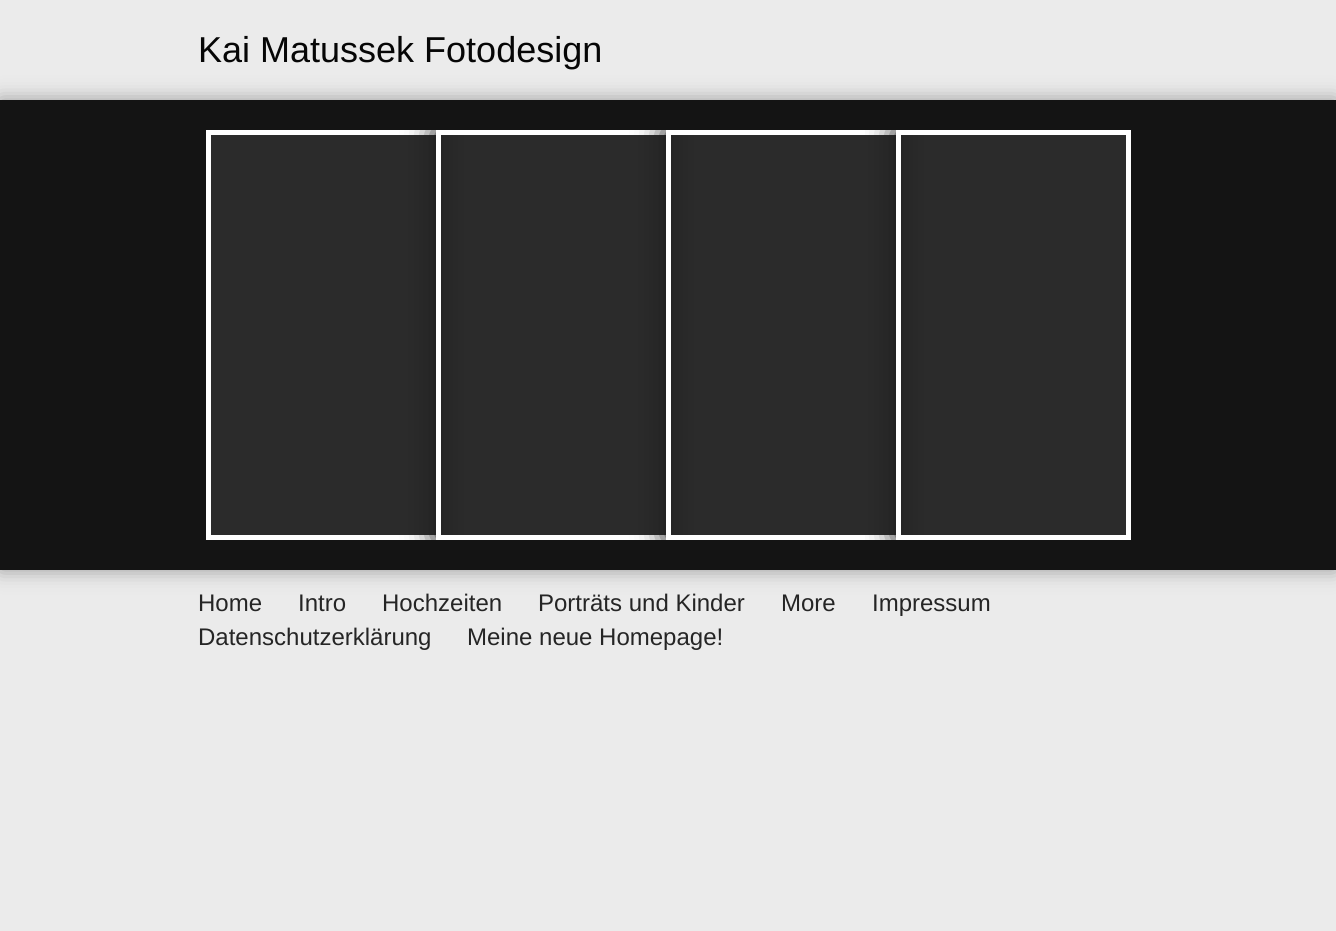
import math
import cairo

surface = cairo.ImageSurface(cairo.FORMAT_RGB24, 1336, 931)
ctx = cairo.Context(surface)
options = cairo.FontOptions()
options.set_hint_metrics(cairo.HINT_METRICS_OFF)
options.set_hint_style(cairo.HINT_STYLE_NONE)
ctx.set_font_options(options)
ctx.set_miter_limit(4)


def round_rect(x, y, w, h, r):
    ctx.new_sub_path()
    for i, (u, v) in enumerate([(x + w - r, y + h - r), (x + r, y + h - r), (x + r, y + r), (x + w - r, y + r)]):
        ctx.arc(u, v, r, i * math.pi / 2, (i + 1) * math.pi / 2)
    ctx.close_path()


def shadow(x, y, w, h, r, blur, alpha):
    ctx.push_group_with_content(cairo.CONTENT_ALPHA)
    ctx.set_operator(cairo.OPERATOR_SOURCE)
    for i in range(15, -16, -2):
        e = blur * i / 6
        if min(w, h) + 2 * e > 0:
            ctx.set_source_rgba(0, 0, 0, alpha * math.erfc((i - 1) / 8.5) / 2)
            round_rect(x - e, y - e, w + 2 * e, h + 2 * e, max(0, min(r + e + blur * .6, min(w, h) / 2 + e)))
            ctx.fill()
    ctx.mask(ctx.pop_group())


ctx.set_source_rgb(0.918, 0.918, 0.918)
ctx.paint()
ctx.select_font_face("Liberation Sans")
ctx.set_font_size(36)
ctx.set_source_rgb(0.027, 0.027, 0.027)
ctx.move_to(198, 62)
ctx.show_text("Kai Matussek Fotodesign")
ctx.set_source_rgb(0.6, 0.6, 0.6)
shadow(0, 100, 1336, 470, 0, 10, 1)
ctx.set_source_rgb(0.082, 0.082, 0.082)
ctx.rectangle(0, 100, 1336, 470)
ctx.fill()
ctx.set_source_rgb(1, 1, 1)
ctx.rectangle(1126, 130, 5, 410)
ctx.fill()
ctx.save()
ctx.rectangle(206, 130, 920, 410)
ctx.clip()
ctx.rectangle(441, 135, 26, 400)
ctx.clip()
ctx.set_source_rgb(0, 0, 0)
shadow(206, 130, 230, 410, 0, 15, 1)
ctx.restore()
ctx.save()
ctx.rectangle(206, 130, 230, 410)
ctx.clip()
ctx.rectangle(208.5, 132.5, 605, 405)
ctx.set_line_width(5)
ctx.stroke()
ctx.restore()
ctx.save()
ctx.rectangle(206, 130, 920, 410)
ctx.clip()
ctx.set_fill_rule(cairo.FILL_RULE_EVEN_ODD)
ctx.new_path()
ctx.move_to(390, 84)
ctx.line_to(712, 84)
ctx.line_to(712, 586)
ctx.line_to(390, 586)
ctx.close_path()
ctx.move_to(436, 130)
ctx.line_to(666, 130)
ctx.line_to(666, 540)
ctx.line_to(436, 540)
ctx.close_path()
ctx.clip()
ctx.set_source_rgb(0, 0, 0)
shadow(436, 130, 230, 410, 0, 15, 1)
ctx.restore()
ctx.set_source_rgba(1, 1, 1, 0.1)
ctx.rectangle(211, 135, 225, 400)
ctx.fill()
ctx.save()
ctx.rectangle(436, 130, 230, 410)
ctx.clip()
ctx.rectangle(438.5, 132.5, 605, 405)
ctx.set_source_rgb(1, 1, 1)
ctx.set_line_width(5)
ctx.stroke()
ctx.restore()
ctx.save()
ctx.rectangle(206, 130, 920, 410)
ctx.clip()
ctx.set_fill_rule(cairo.FILL_RULE_EVEN_ODD)
ctx.new_path()
ctx.move_to(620, 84)
ctx.line_to(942, 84)
ctx.line_to(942, 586)
ctx.line_to(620, 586)
ctx.close_path()
ctx.move_to(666, 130)
ctx.line_to(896, 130)
ctx.line_to(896, 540)
ctx.line_to(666, 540)
ctx.close_path()
ctx.clip()
ctx.set_source_rgb(0, 0, 0)
shadow(666, 130, 230, 410, 0, 15, 1)
ctx.restore()
ctx.rectangle(441, 135, 225, 400)
ctx.fill()
ctx.save()
ctx.rectangle(666, 130, 230, 410)
ctx.clip()
ctx.rectangle(668.5, 132.5, 605, 405)
ctx.set_source_rgb(1, 1, 1)
ctx.set_line_width(5)
ctx.stroke()
ctx.restore()
ctx.save()
ctx.rectangle(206, 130, 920, 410)
ctx.clip()
ctx.rectangle(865, 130, 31, 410)
ctx.clip()
ctx.set_source_rgb(0, 0, 0)
shadow(896, 130, 230, 410, 0, 15, 1)
ctx.restore()
ctx.rectangle(671, 135, 225, 400)
ctx.fill()
ctx.save()
ctx.rectangle(896, 130, 230, 410)
ctx.clip()
ctx.rectangle(898.5, 132.5, 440, 405)
ctx.set_source_rgb(1, 1, 1)
ctx.set_line_width(5)
ctx.stroke()
ctx.restore()
ctx.rectangle(901, 135, 225, 400)
ctx.fill()
ctx.set_font_size(24)
ctx.set_source_rgb(0.145, 0.145, 0.145)
ctx.move_to(198, 611)
ctx.show_text("Home")
ctx.move_to(298, 611)
ctx.show_text("Intro")
ctx.move_to(382, 611)
ctx.show_text("Hochzeiten")
ctx.move_to(538, 611)
ctx.show_text("Porträts und Kinder")
ctx.move_to(781, 611)
ctx.show_text("More")
ctx.move_to(872, 611)
ctx.show_text("Impressum")
ctx.move_to(198, 645)
ctx.show_text("Datenschutzerklärung")
ctx.move_to(467, 645)
ctx.show_text("Meine neue Homepage!")
surface.write_to_png("page.png")
